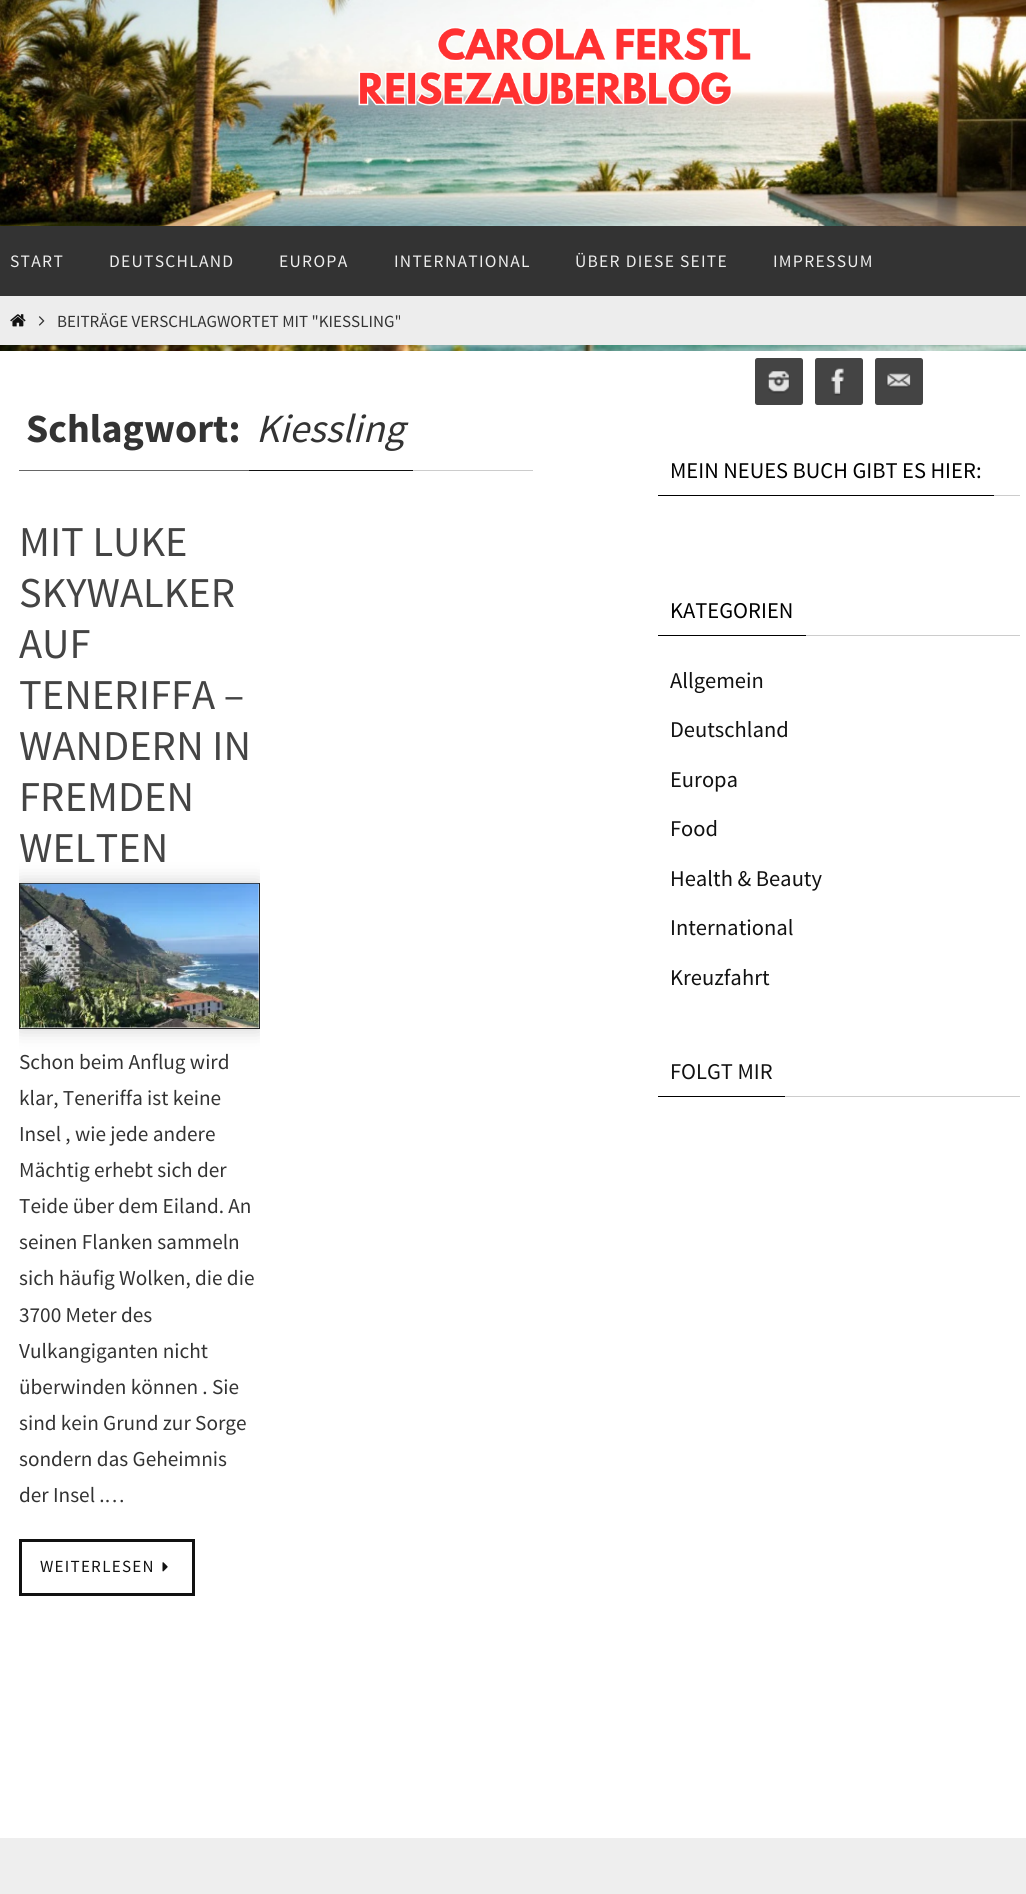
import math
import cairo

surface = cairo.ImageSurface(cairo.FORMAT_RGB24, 1026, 1894)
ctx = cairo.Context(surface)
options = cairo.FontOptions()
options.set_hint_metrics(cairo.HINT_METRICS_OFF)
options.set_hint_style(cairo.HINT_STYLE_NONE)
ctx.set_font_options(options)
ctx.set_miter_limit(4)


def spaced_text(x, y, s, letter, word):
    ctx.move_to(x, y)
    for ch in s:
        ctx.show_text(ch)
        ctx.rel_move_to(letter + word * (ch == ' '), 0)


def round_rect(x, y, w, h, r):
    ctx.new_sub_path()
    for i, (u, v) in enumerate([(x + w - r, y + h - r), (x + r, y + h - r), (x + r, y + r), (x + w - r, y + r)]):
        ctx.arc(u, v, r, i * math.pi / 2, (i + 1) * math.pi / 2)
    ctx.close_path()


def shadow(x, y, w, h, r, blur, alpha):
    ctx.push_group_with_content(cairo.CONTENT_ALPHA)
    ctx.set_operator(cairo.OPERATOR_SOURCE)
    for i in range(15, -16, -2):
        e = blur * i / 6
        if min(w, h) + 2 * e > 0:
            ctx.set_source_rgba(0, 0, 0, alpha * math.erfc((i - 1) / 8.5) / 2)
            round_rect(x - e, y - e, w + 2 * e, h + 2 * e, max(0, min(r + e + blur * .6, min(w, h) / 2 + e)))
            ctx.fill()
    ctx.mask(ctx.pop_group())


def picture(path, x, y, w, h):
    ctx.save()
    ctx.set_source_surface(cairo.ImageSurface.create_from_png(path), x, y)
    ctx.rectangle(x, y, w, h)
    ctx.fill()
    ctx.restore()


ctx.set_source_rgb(1, 1, 1)
ctx.paint()
picture("img1.png", 0, 345, 1026, 6)
ctx.set_source_rgb(0.2, 0.2, 0.2)
ctx.rectangle(896, 226, 130, 70)
ctx.fill()
picture("img2.png", 0, 0, 1026, 227)
ctx.rectangle(0, 226, 896, 70)
ctx.fill()
ctx.select_font_face("Source Sans Pro")
ctx.set_font_size(17.5)
ctx.set_source_rgb(0.933, 0.933, 0.933)
spaced_text(10, 267, "START", 1.25, 0)
spaced_text(109, 267, "DEUTSCHLAND", 1.25, 0)
spaced_text(279, 267, "EUROPA", 1.25, 0)
spaced_text(394, 267, "INTERNATIONAL", 1.25, 0)
spaced_text(575, 267, "ÜBER DIESE SEITE", 1.25, 0)
spaced_text(773, 267, "IMPRESSUM", 1.25, 0)
ctx.set_source_rgb(0.929, 0.929, 0.929)
ctx.rectangle(0, 296, 1026, 49)
ctx.fill()
picture("img3.png", 10, 314, 16, 13)
picture("img4.png", 38, 316, 7, 10)
ctx.set_font_size(17)
ctx.set_source_rgb(0.2, 0.2, 0.2)
ctx.move_to(57, 327)
ctx.show_text("BEITRÄGE VERSCHLAGWORTET MIT \"KIESSLING\"")
ctx.set_source_rgb(0.8, 0.8, 0.8)
ctx.rectangle(413, 470, 120, 1)
ctx.fill()
ctx.set_source_rgb(0.4, 0.4, 0.4)
ctx.rectangle(19, 470, 230, 1)
ctx.fill()
ctx.select_font_face("Source Sans Pro", cairo.FONT_SLANT_NORMAL, cairo.FONT_WEIGHT_BOLD)
ctx.set_font_size(40)
ctx.set_source_rgb(0.2, 0.2, 0.2)
ctx.move_to(26, 442)
ctx.show_text("Schlagwort:")
ctx.set_source_rgb(0.067, 0.067, 0.067)
ctx.rectangle(249, 470, 164, 1)
ctx.fill()
ctx.select_font_face("Source Sans Pro", cairo.FONT_SLANT_ITALIC)
ctx.set_source_rgb(0.2, 0.2, 0.2)
ctx.move_to(256, 442)
ctx.show_text("Kiessling")
ctx.select_font_face("Source Sans Pro")
ctx.set_font_size(42.5)
ctx.set_source_rgb(0.267, 0.267, 0.267)
ctx.move_to(19, 556)
ctx.show_text("MIT LUKE")
ctx.move_to(19, 607)
ctx.show_text("SKYWALKER")
ctx.move_to(19, 658)
ctx.show_text("AUF")
ctx.move_to(19, 709)
ctx.show_text("TENERIFFA –")
ctx.move_to(19, 760)
ctx.show_text("WANDERN IN")
ctx.move_to(19, 811)
ctx.show_text("FREMDEN")
ctx.move_to(19, 862)
ctx.show_text("WELTEN")
ctx.save()
ctx.rectangle(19, 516, 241, 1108)
ctx.clip()
ctx.set_fill_rule(cairo.FILL_RULE_EVEN_ODD)
ctx.new_path()
ctx.move_to(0, 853)
ctx.line_to(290, 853)
ctx.line_to(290, 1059)
ctx.line_to(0, 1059)
ctx.close_path()
ctx.move_to(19, 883)
ctx.line_to(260, 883)
ctx.line_to(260, 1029)
ctx.line_to(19, 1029)
ctx.close_path()
ctx.clip()
ctx.set_source_rgb(0.804, 0.804, 0.804)
shadow(19, 883, 241, 146, 0, 9.5, 1)
ctx.restore()
ctx.rectangle(19.5, 883.5, 240, 145)
ctx.set_source_rgb(0.141, 0.141, 0.141)
ctx.set_line_width(1)
ctx.stroke()
picture("img5.png", 20, 883, 239, 145)
ctx.set_font_size(21.25)
ctx.set_source_rgb(0.2, 0.2, 0.2)
ctx.move_to(19, 1069)
ctx.show_text("Schon beim Anflug wird")
ctx.move_to(19, 1105)
ctx.show_text("klar, Teneriffa ist keine")
ctx.move_to(19, 1141)
ctx.show_text("Insel , wie jede andere")
ctx.move_to(19, 1177)
ctx.show_text("Mächtig erhebt sich der")
ctx.move_to(19, 1213)
ctx.show_text("Teide über dem Eiland. An")
ctx.move_to(19, 1249)
ctx.show_text("seinen Flanken sammeln")
ctx.move_to(19, 1285)
ctx.show_text("sich häufig Wolken, die die")
ctx.move_to(19, 1322)
ctx.show_text("3700 Meter des")
ctx.move_to(19, 1358)
ctx.show_text("Vulkangiganten nicht")
ctx.move_to(19, 1394)
ctx.show_text("überwinden können . Sie")
ctx.move_to(19, 1430)
ctx.show_text("sind kein Grund zur Sorge")
ctx.move_to(19, 1466)
ctx.show_text("sondern das Geheimnis")
ctx.move_to(19, 1502)
ctx.show_text("der Insel .")
ctx.select_font_face("Liberation Serif")
ctx.move_to(104, 1502)
ctx.show_text("…")
ctx.rectangle(20.5, 1540.5, 173, 54)
ctx.set_source_rgb(0.067, 0.067, 0.067)
ctx.set_line_width(3)
ctx.stroke()
ctx.select_font_face("Source Sans Pro")
ctx.set_font_size(17)
spaced_text(40, 1572, "WEITERLESEN", 1.25, 0)
picture("img6.png", 162, 1562, 6, 10)
ctx.set_source_rgb(0.267, 0.267, 0.267)
round_rect(755, 358, 48, 47, 2.5)
ctx.fill()
picture("img7.png", 768, 371, 22, 23)
round_rect(815, 358, 48, 47, 2.5)
ctx.fill()
picture("img8.png", 831, 368, 13, 28)
round_rect(875, 358, 48, 47, 2.5)
ctx.fill()
picture("img9.png", 886, 373, 25, 15)
ctx.set_source_rgb(0.8, 0.8, 0.8)
ctx.rectangle(994, 495, 26, 1)
ctx.fill()
ctx.set_source_rgb(0, 0, 0)
ctx.rectangle(658, 495, 336, 1)
ctx.fill()
ctx.set_font_size(22.5)
ctx.move_to(670, 478)
ctx.show_text("MEIN NEUES BUCH GIBT ES HIER:")
ctx.set_source_rgb(0.8, 0.8, 0.8)
ctx.rectangle(806, 635, 214, 1)
ctx.fill()
ctx.set_source_rgb(0, 0, 0)
ctx.rectangle(658, 635, 148, 1)
ctx.fill()
ctx.move_to(670, 618)
ctx.show_text("KATEGORIEN")
ctx.set_source_rgb(0.067, 0.067, 0.067)
ctx.move_to(670, 688)
ctx.show_text("Allgemein")
ctx.move_to(670, 737)
ctx.show_text("Deutschland")
ctx.move_to(670, 787)
ctx.show_text("Europa")
ctx.move_to(670, 836)
ctx.show_text("Food")
ctx.move_to(670, 886)
ctx.show_text("Health & Beauty")
ctx.move_to(670, 935)
ctx.show_text("International")
ctx.move_to(670, 985)
ctx.show_text("Kreuzfahrt")
ctx.set_source_rgb(0.8, 0.8, 0.8)
ctx.rectangle(785, 1096, 235, 1)
ctx.fill()
ctx.set_source_rgb(0, 0, 0)
ctx.rectangle(658, 1096, 127, 1)
ctx.fill()
ctx.set_source_rgb(0.067, 0.067, 0.067)
ctx.move_to(670, 1079)
ctx.show_text("FOLGT MIR")
ctx.set_source_rgb(0.933, 0.933, 0.933)
ctx.rectangle(0, 1838, 1026, 56)
ctx.fill()
surface.write_to_png("page.png")
